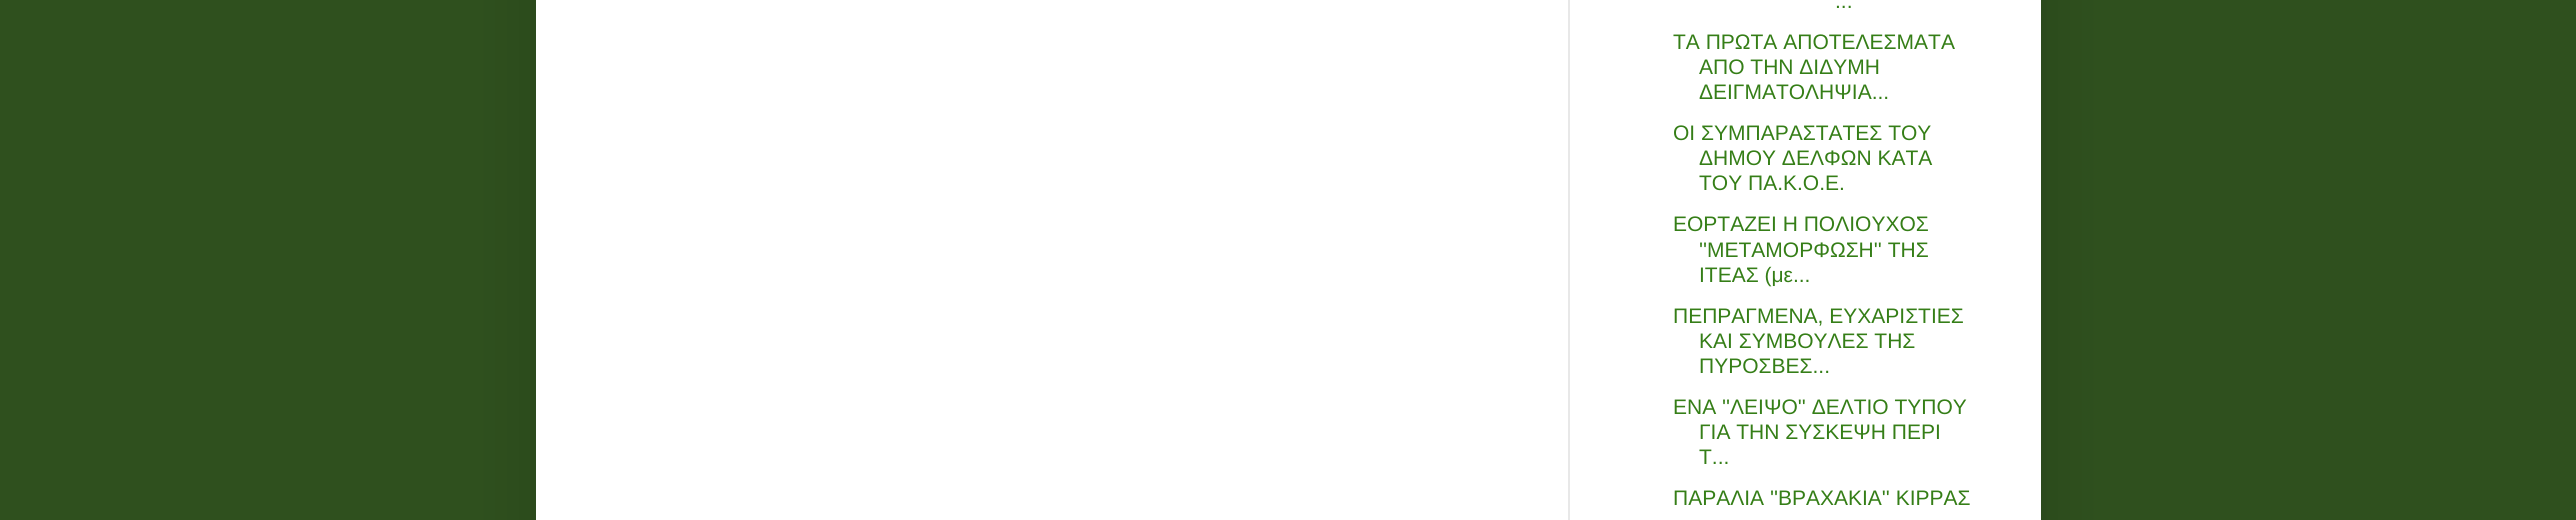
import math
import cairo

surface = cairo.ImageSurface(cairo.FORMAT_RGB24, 2576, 520)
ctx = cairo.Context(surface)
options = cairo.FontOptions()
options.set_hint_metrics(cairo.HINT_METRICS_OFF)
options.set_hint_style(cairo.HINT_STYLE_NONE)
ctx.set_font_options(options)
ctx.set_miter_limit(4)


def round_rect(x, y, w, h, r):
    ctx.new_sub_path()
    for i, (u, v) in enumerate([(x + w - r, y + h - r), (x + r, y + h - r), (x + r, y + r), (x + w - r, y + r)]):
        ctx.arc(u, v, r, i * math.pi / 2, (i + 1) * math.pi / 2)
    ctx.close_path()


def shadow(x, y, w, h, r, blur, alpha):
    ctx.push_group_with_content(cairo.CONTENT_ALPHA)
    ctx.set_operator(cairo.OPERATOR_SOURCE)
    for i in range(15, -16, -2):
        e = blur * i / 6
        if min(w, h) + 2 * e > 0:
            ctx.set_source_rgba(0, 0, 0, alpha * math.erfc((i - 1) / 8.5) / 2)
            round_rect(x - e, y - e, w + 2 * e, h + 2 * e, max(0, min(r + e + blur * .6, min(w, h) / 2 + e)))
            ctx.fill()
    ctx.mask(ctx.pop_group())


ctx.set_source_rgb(0.184, 0.314, 0.118)
ctx.paint()
ctx.set_source_rgb(0, 0, 0)
shadow(536, -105, 1505, 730, 0, 35, 0.15)
ctx.set_source_rgb(1, 1, 1)
ctx.rectangle(536, 0, 1505, 520)
ctx.fill()
ctx.set_source_rgb(0.91, 0.91, 0.91)
ctx.rectangle(1568, 0, 2, 520)
ctx.fill()
ctx.select_font_face("Liberation Sans")
ctx.set_font_size(21)
ctx.set_source_rgb(0.208, 0.494, 0.09)
ctx.move_to(1835, 8)
ctx.show_text("...")
ctx.move_to(1673, 49)
ctx.show_text("ΤΑ ΠΡΩΤΑ ΑΠΟΤΕΛΕΣΜΑΤΑ")
ctx.move_to(1699, 74)
ctx.show_text("ΑΠΟ ΤΗΝ ΔΙΔΥΜΗ")
ctx.move_to(1699, 99)
ctx.show_text("ΔΕΙΓΜΑΤΟΛΗΨΙΑ...")
ctx.move_to(1673, 140)
ctx.show_text("ΟΙ ΣΥΜΠΑΡΑΣΤΑΤΕΣ ΤΟΥ")
ctx.move_to(1699, 165)
ctx.show_text("ΔΗΜΟΥ ΔΕΛΦΩΝ ΚΑΤΑ")
ctx.move_to(1699, 190)
ctx.show_text("ΤΟΥ ΠΑ.Κ.Ο.Ε.")
ctx.move_to(1673, 231)
ctx.show_text("ΕΟΡΤΑΖΕΙ Η ΠΟΛΙΟΥΧΟΣ")
ctx.move_to(1699, 257)
ctx.show_text("''ΜΕΤΑΜΟΡΦΩΣΗ'' ΤΗΣ")
ctx.move_to(1699, 282)
ctx.show_text("ΙΤΕΑΣ (με...")
ctx.move_to(1673, 323)
ctx.show_text("ΠΕΠΡΑΓΜΕΝΑ, ΕΥΧΑΡΙΣΤΙΕΣ")
ctx.move_to(1699, 348)
ctx.show_text("ΚΑΙ ΣΥΜΒΟΥΛΕΣ ΤΗΣ")
ctx.move_to(1699, 373)
ctx.show_text("ΠΥΡΟΣΒΕΣ...")
ctx.move_to(1673, 414)
ctx.show_text("ΕΝΑ ''ΛΕΙΨΟ'' ΔΕΛΤΙΟ ΤΥΠΟΥ")
ctx.move_to(1699, 439)
ctx.show_text("ΓΙΑ ΤΗΝ ΣΥΣΚΕΨΗ ΠΕΡΙ")
ctx.move_to(1699, 464)
ctx.show_text("Τ...")
ctx.move_to(1673, 505)
ctx.show_text("ΠΑΡΑΛΙΑ ''ΒΡΑΧΑΚΙΑ'' ΚΙΡΡΑΣ")
surface.write_to_png("page.png")
